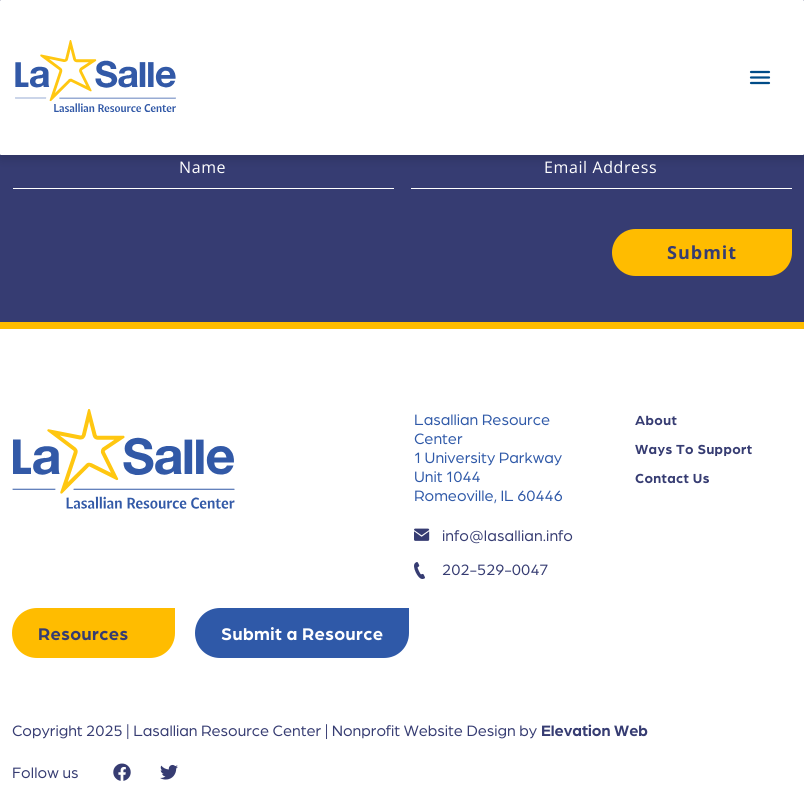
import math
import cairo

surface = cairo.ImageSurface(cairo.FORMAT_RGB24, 804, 808)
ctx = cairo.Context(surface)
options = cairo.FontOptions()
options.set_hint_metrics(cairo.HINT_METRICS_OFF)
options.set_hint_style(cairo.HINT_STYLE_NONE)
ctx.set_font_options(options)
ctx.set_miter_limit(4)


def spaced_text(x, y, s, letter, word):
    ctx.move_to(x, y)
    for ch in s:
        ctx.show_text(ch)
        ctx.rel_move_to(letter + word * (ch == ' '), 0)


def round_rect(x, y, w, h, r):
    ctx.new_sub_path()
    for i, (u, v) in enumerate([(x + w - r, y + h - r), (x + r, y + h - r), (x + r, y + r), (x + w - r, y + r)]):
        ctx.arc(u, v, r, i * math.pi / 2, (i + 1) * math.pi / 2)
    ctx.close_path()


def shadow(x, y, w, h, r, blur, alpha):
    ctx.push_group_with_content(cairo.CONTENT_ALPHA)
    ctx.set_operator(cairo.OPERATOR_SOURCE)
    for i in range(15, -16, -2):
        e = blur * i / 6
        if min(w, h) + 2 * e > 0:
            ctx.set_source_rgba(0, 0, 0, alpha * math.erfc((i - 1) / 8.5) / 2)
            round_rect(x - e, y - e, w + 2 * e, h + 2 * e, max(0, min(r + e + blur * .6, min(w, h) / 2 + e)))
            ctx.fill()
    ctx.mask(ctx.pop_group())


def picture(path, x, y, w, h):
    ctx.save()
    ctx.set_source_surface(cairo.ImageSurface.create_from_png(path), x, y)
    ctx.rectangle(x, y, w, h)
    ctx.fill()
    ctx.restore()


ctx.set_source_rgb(1, 1, 1)
ctx.paint()
ctx.set_source_rgb(0.212, 0.235, 0.447)
ctx.rectangle(0, 0, 804, 322)
ctx.fill()
ctx.set_source_rgb(0, 0, 0)
shadow(0, 4, 804, 155, 1, 5.5, 0.15)
ctx.set_source_rgb(1, 1, 1)
round_rect(0, 0, 804, 155, 1)
ctx.fill()
picture("img1.png", 15, 40, 161, 72)
ctx.new_path()
ctx.move_to(751, 72)
ctx.line_to(769, 72)
ctx.move_to(751, 77.5)
ctx.line_to(769, 77.5)
ctx.move_to(751, 83)
ctx.line_to(769, 83)
ctx.set_source_rgb(0, 0.294, 0.529)
ctx.set_line_width(2.2)
ctx.set_line_cap(cairo.LINE_CAP_ROUND)
ctx.set_line_join(cairo.LINE_JOIN_ROUND)
ctx.stroke()
ctx.set_source_rgb(1, 0.737, 0)
ctx.rectangle(0, 322, 804, 7)
ctx.fill()
ctx.set_source_rgb(1, 1, 1)
ctx.rectangle(13, 188, 381, 1)
ctx.fill()
ctx.select_font_face("Open Sans")
ctx.set_font_size(16)
spaced_text(179, 173, "Name", 0.6, 0)
ctx.rectangle(411, 188, 381, 1)
ctx.fill()
spaced_text(544, 173, "Email Address", 0.6, 0)
ctx.set_source_rgb(1, 0.737, 0)
ctx.new_path()
ctx.move_to(635.5, 229)
ctx.line_to(792, 229)
ctx.line_to(792, 252.5)
ctx.curve_to(792, 265.5, 781.5, 276, 768.5, 276)
ctx.line_to(635.5, 276)
ctx.curve_to(622.5, 276, 612, 265.5, 612, 252.5)
ctx.curve_to(612, 239.5, 622.5, 229, 635.5, 229)
ctx.close_path()
ctx.fill()
ctx.select_font_face("Open Sans", cairo.FONT_SLANT_NORMAL, cairo.FONT_WEIGHT_BOLD)
ctx.set_font_size(18)
ctx.set_source_rgb(0.212, 0.235, 0.447)
spaced_text(667, 259, "Submit", 1, 0)
picture("img2.png", 12, 409, 223, 100)
ctx.select_font_face("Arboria")
ctx.set_font_size(16)
ctx.set_source_rgb(0.184, 0.349, 0.659)
ctx.move_to(414, 425)
ctx.show_text("Lasallian Resource")
ctx.move_to(414, 444)
ctx.show_text("Center")
ctx.move_to(414, 463)
ctx.show_text("1 University Parkway")
ctx.move_to(414, 482)
ctx.show_text("Unit 1044")
ctx.move_to(414, 501)
ctx.show_text("Romeoville, IL 60446")
picture("img3.png", 414, 528, 16, 13)
ctx.set_source_rgb(0.212, 0.235, 0.447)
spaced_text(442, 541, "info@lasallian.info", 0.1, 0)
picture("img4.png", 414, 562, 11, 17)
spaced_text(442, 575, "202-529-0047", 0.1, 0)
ctx.select_font_face("Arboria", cairo.FONT_SLANT_NORMAL, cairo.FONT_WEIGHT_BOLD)
ctx.set_font_size(14)
spaced_text(635, 425, "About", 0.4, 0)
spaced_text(635, 454, "Ways To Support", 0.4, 0)
spaced_text(635, 483, "Contact Us", 0.4, 0)
ctx.set_source_rgb(1, 0.737, 0)
ctx.new_path()
ctx.move_to(37, 608)
ctx.line_to(175, 608)
ctx.line_to(175, 633)
ctx.curve_to(175, 647, 164, 658, 150, 658)
ctx.line_to(37, 658)
ctx.curve_to(23, 658, 12, 647, 12, 633)
ctx.curve_to(12, 619, 23, 608, 37, 608)
ctx.close_path()
ctx.fill()
ctx.set_font_size(18)
ctx.set_source_rgb(0.212, 0.235, 0.447)
spaced_text(38, 640, "Resources", 0.4, 0)
ctx.set_source_rgb(0.184, 0.349, 0.659)
ctx.new_path()
ctx.move_to(220, 608)
ctx.line_to(409, 608)
ctx.line_to(409, 633)
ctx.curve_to(409, 647, 398, 658, 384, 658)
ctx.line_to(220, 658)
ctx.curve_to(206, 658, 195, 647, 195, 633)
ctx.curve_to(195, 619, 206, 608, 220, 608)
ctx.close_path()
ctx.fill()
ctx.set_source_rgb(1, 1, 1)
spaced_text(221, 640, "Submit a Resource", 0.4, 0)
ctx.select_font_face("Arboria")
ctx.set_font_size(16)
ctx.set_source_rgb(0.212, 0.235, 0.447)
ctx.move_to(12, 736)
ctx.show_text("Copyright 2025 | Lasallian Resource Center | Nonprofit Website Design by")
ctx.select_font_face("Arboria", cairo.FONT_SLANT_NORMAL, cairo.FONT_WEIGHT_BOLD)
ctx.move_to(541, 736)
ctx.show_text("Elevation Web")
ctx.select_font_face("Arboria")
spaced_text(12, 778, "Follow us", 0.1, 0)
picture("img5.png", 113, 763, 18, 18)
picture("img6.png", 160, 764, 18, 16)
surface.write_to_png("page.png")
